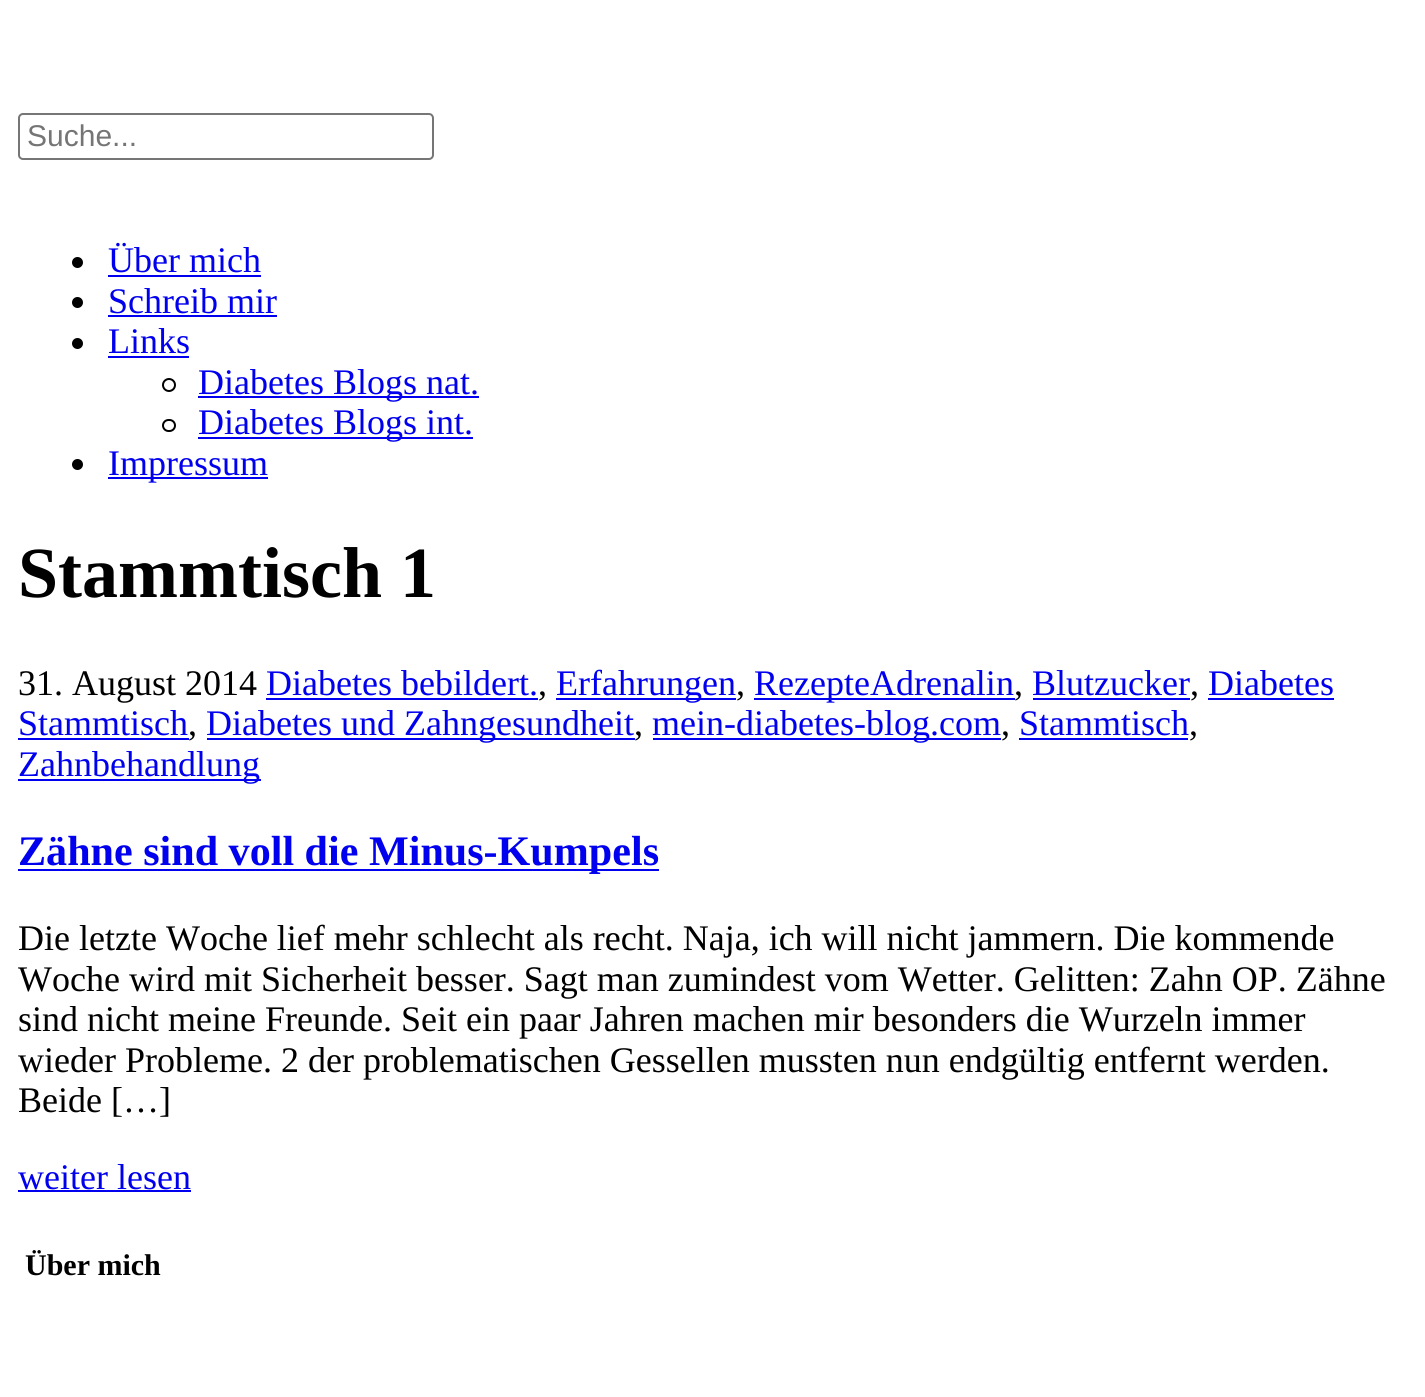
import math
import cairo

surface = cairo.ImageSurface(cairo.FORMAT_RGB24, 1425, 1397)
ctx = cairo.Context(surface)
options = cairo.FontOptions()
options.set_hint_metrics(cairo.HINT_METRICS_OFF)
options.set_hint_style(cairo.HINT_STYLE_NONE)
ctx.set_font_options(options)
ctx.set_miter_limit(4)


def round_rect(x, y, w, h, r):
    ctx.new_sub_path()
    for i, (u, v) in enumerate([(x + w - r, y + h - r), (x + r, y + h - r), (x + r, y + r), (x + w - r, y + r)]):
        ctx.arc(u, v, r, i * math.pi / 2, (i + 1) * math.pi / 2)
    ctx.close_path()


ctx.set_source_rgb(1, 1, 1)
ctx.paint()
round_rect(19, 114, 414, 45, 4)
ctx.set_source_rgb(0.463, 0.463, 0.463)
ctx.stroke()
ctx.select_font_face("Liberation Sans")
ctx.set_font_size(30)
ctx.set_source_rgb(0.459, 0.459, 0.459)
ctx.move_to(27, 146)
ctx.show_text("Suche...")
ctx.set_source_rgb(0, 0, 0)
ctx.new_path()
ctx.arc(77.5, 262.5, 5.5, 0, 2 * math.pi)
ctx.fill()
ctx.select_font_face("Liberation Serif")
ctx.set_font_size(36)
ctx.set_source_rgb(0, 0, 0.933)
ctx.move_to(108, 272)
ctx.show_text("Über mich")
ctx.rectangle(108, 275, 153, 2)
ctx.fill()
ctx.set_source_rgb(0, 0, 0)
ctx.arc(77.5, 302.5, 5.5, 0, 2 * math.pi)
ctx.fill()
ctx.set_source_rgb(0, 0, 0.933)
ctx.move_to(108, 313)
ctx.show_text("Schreib mir")
ctx.rectangle(108, 315, 169, 2)
ctx.fill()
ctx.set_source_rgb(0, 0, 0)
ctx.arc(77.5, 343.5, 5.5, 0, 2 * math.pi)
ctx.fill()
ctx.set_source_rgb(0, 0, 0.933)
ctx.move_to(108, 353)
ctx.show_text("Links")
ctx.rectangle(108, 356, 81, 2)
ctx.fill()
ctx.arc(169, 385, 6, 0, 2 * math.pi)
ctx.set_source_rgb(0, 0, 0)
ctx.stroke()
ctx.set_source_rgb(0, 0, 0.933)
ctx.rectangle(198, 396, 281, 2)
ctx.fill()
ctx.move_to(198, 394)
ctx.show_text("Diabetes Blogs nat.")
round_rect(163, 420, 12, 11, 5.5)
ctx.set_source_rgb(0, 0, 0)
ctx.stroke()
ctx.set_source_rgb(0, 0, 0.933)
ctx.rectangle(198, 437, 275, 2)
ctx.fill()
ctx.move_to(198, 434)
ctx.show_text("Diabetes Blogs int.")
ctx.set_source_rgb(0, 0, 0)
ctx.new_path()
ctx.arc(77.5, 464.5, 5.5, 0, 2 * math.pi)
ctx.fill()
ctx.set_source_rgb(0, 0, 0.933)
ctx.rectangle(108, 477, 160, 2)
ctx.fill()
ctx.move_to(108, 475)
ctx.show_text("Impressum")
ctx.select_font_face("Liberation Serif", cairo.FONT_SLANT_NORMAL, cairo.FONT_WEIGHT_BOLD)
ctx.set_font_size(72)
ctx.set_source_rgb(0, 0, 0)
ctx.move_to(18, 597)
ctx.show_text("Stammtisch 1")
ctx.select_font_face("Liberation Serif")
ctx.set_font_size(36)
ctx.move_to(18, 695)
ctx.show_text("31. August 2014")
ctx.set_source_rgb(0, 0, 0.933)
ctx.move_to(266, 695)
ctx.show_text("Diabetes bebildert.")
ctx.set_source_rgb(0, 0, 0)
ctx.move_to(538, 695)
ctx.show_text(",")
ctx.set_source_rgb(0, 0, 0.933)
ctx.rectangle(266, 698, 272, 2)
ctx.fill()
ctx.rectangle(556, 698, 180, 2)
ctx.fill()
ctx.move_to(556, 695)
ctx.show_text("Erfahrungen")
ctx.set_source_rgb(0, 0, 0)
ctx.move_to(736, 695)
ctx.show_text(",")
ctx.set_source_rgb(0, 0, 0.933)
ctx.rectangle(754, 698, 261, 2)
ctx.fill()
ctx.move_to(754, 695)
ctx.show_text("RezepteAdrenalin")
ctx.set_source_rgb(0, 0, 0)
ctx.move_to(1014, 695)
ctx.show_text(",")
ctx.set_source_rgb(0, 0, 0.933)
ctx.move_to(1032, 695)
ctx.show_text("Blutzucker")
ctx.set_source_rgb(0, 0, 0)
ctx.move_to(1190, 695)
ctx.show_text(",")
ctx.set_source_rgb(0, 0, 0.933)
ctx.rectangle(1033, 698, 157, 2)
ctx.fill()
ctx.rectangle(1208, 698, 126, 2)
ctx.fill()
ctx.move_to(1208, 695)
ctx.show_text("Diabetes")
ctx.move_to(18, 735)
ctx.show_text("Stammtisch")
ctx.set_source_rgb(0, 0, 0)
ctx.move_to(188, 735)
ctx.show_text(",")
ctx.set_source_rgb(0, 0, 0.933)
ctx.rectangle(18, 738, 171, 2)
ctx.fill()
ctx.rectangle(207, 738, 428, 2)
ctx.fill()
ctx.move_to(206, 735)
ctx.show_text("Diabetes und Zahngesundheit")
ctx.set_source_rgb(0, 0, 0)
ctx.move_to(634, 735)
ctx.show_text(",")
ctx.set_source_rgb(0, 0, 0.933)
ctx.rectangle(653, 738, 348, 2)
ctx.fill()
ctx.move_to(652, 735)
ctx.show_text("mein-diabetes-blog.com")
ctx.set_source_rgb(0, 0, 0)
ctx.move_to(1001, 735)
ctx.show_text(",")
ctx.set_source_rgb(0, 0, 0.933)
ctx.move_to(1019, 735)
ctx.show_text("Stammtisch")
ctx.set_source_rgb(0, 0, 0)
ctx.move_to(1189, 735)
ctx.show_text(",")
ctx.set_source_rgb(0, 0, 0.933)
ctx.rectangle(1019, 738, 169, 2)
ctx.fill()
ctx.rectangle(18, 779, 243, 2)
ctx.fill()
ctx.move_to(18, 776)
ctx.show_text("Zahnbehandlung")
ctx.rectangle(18, 869, 641, 2)
ctx.fill()
ctx.select_font_face("Liberation Serif", cairo.FONT_SLANT_NORMAL, cairo.FONT_WEIGHT_BOLD)
ctx.set_font_size(42.1)
ctx.move_to(18, 865)
ctx.show_text("Zähne sind voll die Minus-Kumpels")
ctx.select_font_face("Liberation Serif")
ctx.set_font_size(36)
ctx.set_source_rgb(0, 0, 0)
ctx.move_to(18, 950)
ctx.show_text("Die letzte Woche lief mehr schlecht als recht. Naja, ich will nicht jammern. Die kommende")
ctx.move_to(18, 991)
ctx.show_text("Woche wird mit Sicherheit besser. Sagt man zumindest vom Wetter. Gelitten: Zahn OP. Zähne")
ctx.move_to(18, 1031)
ctx.show_text("sind nicht meine Freunde. Seit ein paar Jahren machen mir besonders die Wurzeln immer")
ctx.move_to(18, 1072)
ctx.show_text("wieder Probleme. 2 der problematischen Gessellen mussten nun endgültig entfernt werden.")
ctx.move_to(18, 1112)
ctx.show_text("Beide […]")
ctx.set_source_rgb(0, 0, 0.933)
ctx.move_to(18, 1189)
ctx.show_text("weiter lesen")
ctx.rectangle(18, 1190, 173, 2)
ctx.fill()
ctx.select_font_face("Liberation Serif", cairo.FONT_SLANT_NORMAL, cairo.FONT_WEIGHT_BOLD)
ctx.set_font_size(30)
ctx.set_source_rgb(0, 0, 0)
ctx.move_to(25, 1275)
ctx.show_text("Über mich")
surface.write_to_png("page.png")
